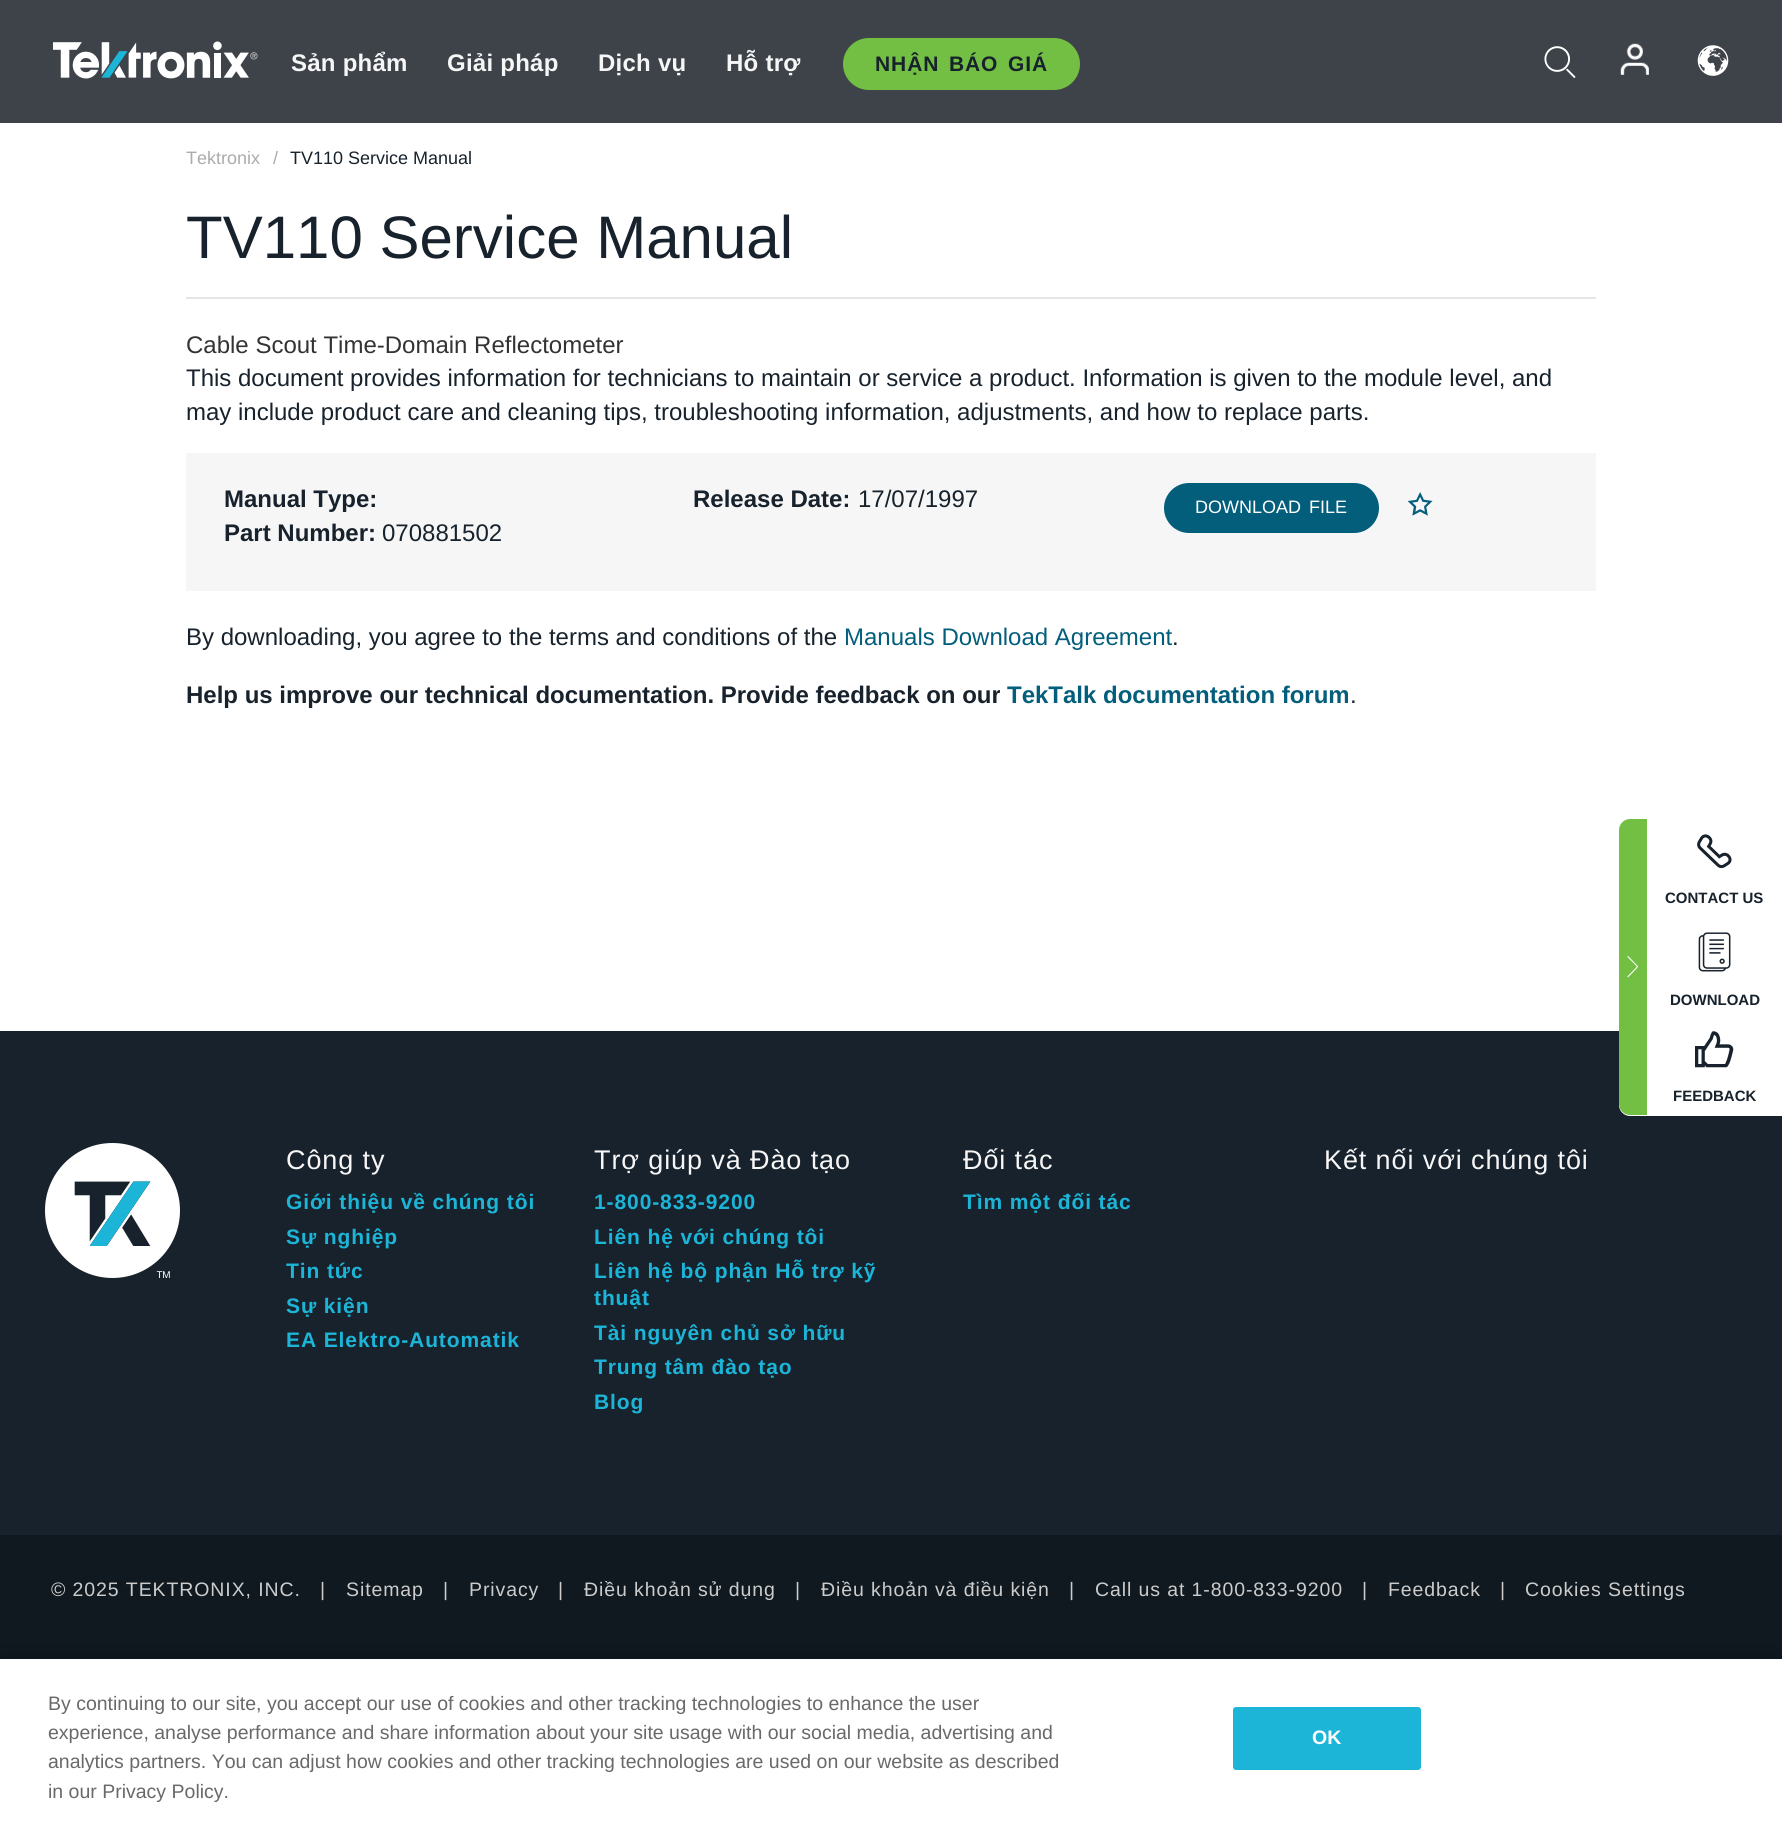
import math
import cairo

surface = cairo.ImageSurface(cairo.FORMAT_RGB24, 1782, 1821)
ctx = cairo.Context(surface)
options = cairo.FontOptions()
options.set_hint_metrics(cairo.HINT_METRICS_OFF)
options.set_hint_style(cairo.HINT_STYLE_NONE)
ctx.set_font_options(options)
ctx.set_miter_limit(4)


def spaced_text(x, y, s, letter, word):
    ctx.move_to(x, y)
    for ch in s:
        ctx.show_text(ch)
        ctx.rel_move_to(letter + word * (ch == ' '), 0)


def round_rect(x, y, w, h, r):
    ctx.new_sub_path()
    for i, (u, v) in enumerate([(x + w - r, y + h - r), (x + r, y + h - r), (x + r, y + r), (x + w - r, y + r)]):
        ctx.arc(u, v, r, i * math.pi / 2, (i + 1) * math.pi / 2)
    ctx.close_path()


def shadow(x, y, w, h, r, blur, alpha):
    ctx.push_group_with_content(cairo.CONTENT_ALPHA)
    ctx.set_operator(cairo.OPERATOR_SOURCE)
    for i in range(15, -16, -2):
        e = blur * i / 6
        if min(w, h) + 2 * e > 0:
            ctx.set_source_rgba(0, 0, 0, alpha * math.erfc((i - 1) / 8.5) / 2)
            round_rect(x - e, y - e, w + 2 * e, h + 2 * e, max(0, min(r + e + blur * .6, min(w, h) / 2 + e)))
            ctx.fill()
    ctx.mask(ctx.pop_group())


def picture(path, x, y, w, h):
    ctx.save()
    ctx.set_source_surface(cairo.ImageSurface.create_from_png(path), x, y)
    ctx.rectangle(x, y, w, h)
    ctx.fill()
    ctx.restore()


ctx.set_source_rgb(1, 1, 1)
ctx.paint()
ctx.set_source_rgb(0.243, 0.263, 0.29)
ctx.rectangle(0, 0, 1782, 123)
ctx.fill()
picture("img1.png", 53, 41, 205, 38)
ctx.select_font_face("Liberation Sans", cairo.FONT_SLANT_NORMAL, cairo.FONT_WEIGHT_BOLD)
ctx.set_font_size(24)
ctx.set_source_rgb(0.961, 0.961, 0.961)
spaced_text(291, 71, "Sản phẩm", 0.25, 0)
spaced_text(447, 71, "Giải pháp", 0.25, 0)
spaced_text(598, 71, "Dịch vụ", 0.25, 0)
spaced_text(726, 71, "Hỗ trợ", 0.25, 0)
ctx.set_source_rgb(0.451, 0.749, 0.267)
round_rect(843, 38, 237, 52, 26)
ctx.fill()
ctx.set_font_size(21)
ctx.set_source_rgb(0.09, 0.133, 0.173)
spaced_text(875, 71, "NHẬN BÁO GIÁ", 0.9, 3)
picture("img2.png", 1544, 46, 32, 32)
picture("img3.png", 1620, 43, 29, 32)
picture("img4.png", 1697, 45, 32, 31)
ctx.select_font_face("Liberation Sans")
ctx.set_font_size(18)
ctx.set_source_rgb(0.671, 0.671, 0.671)
ctx.move_to(186, 164)
ctx.show_text("Tektronix")
ctx.move_to(273, 164)
ctx.show_text("/")
ctx.set_source_rgb(0.09, 0.133, 0.173)
ctx.move_to(290, 164)
ctx.show_text("TV110 Service Manual")
ctx.set_source_rgb(0.898, 0.898, 0.898)
ctx.rectangle(186, 297, 1410, 2)
ctx.fill()
ctx.set_font_size(60)
ctx.set_source_rgb(0.09, 0.133, 0.173)
ctx.move_to(186, 258)
ctx.show_text("TV110 Service Manual")
ctx.set_font_size(24)
ctx.set_source_rgb(0.2, 0.2, 0.2)
ctx.move_to(186, 353)
ctx.show_text("Cable Scout Time-Domain Reflectometer")
ctx.set_source_rgb(0.09, 0.133, 0.173)
ctx.move_to(186, 386)
ctx.show_text("This document provides information for technicians to maintain or service a product. Information is given to the module level, and")
ctx.move_to(186, 420)
ctx.show_text("may include product care and cleaning tips, troubleshooting information, adjustments, and how to replace parts.")
ctx.set_source_rgb(0.961, 0.961, 0.961)
ctx.rectangle(186, 453, 1410, 138)
ctx.fill()
ctx.select_font_face("Liberation Sans", cairo.FONT_SLANT_NORMAL, cairo.FONT_WEIGHT_BOLD)
ctx.set_source_rgb(0.09, 0.133, 0.173)
ctx.move_to(224, 507)
ctx.show_text("Manual Type:")
ctx.move_to(224, 541)
ctx.show_text("Part Number:")
ctx.select_font_face("Liberation Sans")
ctx.move_to(382, 541)
ctx.show_text("070881502")
ctx.select_font_face("Liberation Sans", cairo.FONT_SLANT_NORMAL, cairo.FONT_WEIGHT_BOLD)
ctx.move_to(693, 507)
ctx.show_text("Release Date:")
ctx.select_font_face("Liberation Sans")
ctx.move_to(858, 507)
ctx.show_text("17/07/1997")
ctx.set_source_rgb(0.012, 0.369, 0.486)
round_rect(1164, 483, 215, 50, 25)
ctx.fill()
ctx.set_font_size(18)
ctx.set_source_rgb(1, 1, 1)
spaced_text(1195, 513, "DOWNLOAD FILE", 0, 3)
picture("img5.png", 1407, 492, 26, 24)
ctx.set_font_size(24)
ctx.set_source_rgb(0.09, 0.133, 0.173)
ctx.move_to(186, 645)
ctx.show_text("By downloading, you agree to the terms and conditions of the")
ctx.set_source_rgb(0.012, 0.369, 0.486)
ctx.move_to(844, 645)
ctx.show_text("Manuals Download Agreement")
ctx.set_source_rgb(0.09, 0.133, 0.173)
ctx.move_to(1172, 645)
ctx.show_text(".")
ctx.select_font_face("Liberation Sans", cairo.FONT_SLANT_NORMAL, cairo.FONT_WEIGHT_BOLD)
ctx.move_to(186, 703)
ctx.show_text("Help us improve our technical documentation. Provide feedback on our")
ctx.set_source_rgb(0.012, 0.369, 0.486)
ctx.move_to(1007, 703)
ctx.show_text("TekTalk documentation forum")
ctx.select_font_face("Liberation Sans")
ctx.set_source_rgb(0.09, 0.133, 0.173)
ctx.move_to(1350, 703)
ctx.show_text(".")
ctx.rectangle(0, 1031, 1782, 504)
ctx.fill()
ctx.set_source_rgb(1, 1, 1)
ctx.new_path()
ctx.move_to(1630, 819)
ctx.line_to(1782, 819)
ctx.line_to(1782, 1116)
ctx.line_to(1630, 1116)
ctx.curve_to(1624, 1116, 1619, 1111, 1619, 1105)
ctx.line_to(1619, 830)
ctx.curve_to(1619, 824, 1624, 819, 1630, 819)
ctx.close_path()
ctx.fill()
ctx.set_source_rgb(0.451, 0.749, 0.267)
ctx.new_path()
ctx.move_to(1630, 819)
ctx.line_to(1647, 819)
ctx.line_to(1647, 1115)
ctx.line_to(1630, 1115)
ctx.curve_to(1624, 1115, 1619, 1110, 1619, 1104)
ctx.line_to(1619, 830)
ctx.curve_to(1619, 824, 1624, 819, 1630, 819)
ctx.close_path()
ctx.fill()
picture("img6.png", 1627, 956, 12, 22)
picture("img7.png", 1697, 834, 35, 35)
ctx.select_font_face("Liberation Sans", cairo.FONT_SLANT_NORMAL, cairo.FONT_WEIGHT_BOLD)
ctx.set_font_size(15)
ctx.set_source_rgb(0.09, 0.133, 0.173)
ctx.move_to(1665, 903)
ctx.show_text("CONTACT US")
picture("img8.png", 1698, 932, 33, 40)
ctx.move_to(1670, 1005)
ctx.show_text("DOWNLOAD")
picture("img9.png", 1695, 1031, 39, 37)
ctx.move_to(1673, 1101)
ctx.show_text("FEEDBACK")
picture("img10.png", 45, 1143, 135, 135)
ctx.select_font_face("Liberation Sans")
ctx.set_font_size(27)
ctx.set_source_rgb(0.961, 0.961, 0.961)
spaced_text(286, 1169, "Công ty", 0.9, 0)
ctx.select_font_face("Liberation Sans", cairo.FONT_SLANT_NORMAL, cairo.FONT_WEIGHT_BOLD)
ctx.set_font_size(21)
ctx.set_source_rgb(0.11, 0.71, 0.847)
spaced_text(286, 1209, "Giới thiệu về chúng tôi", 0.9, 0)
spaced_text(286, 1244, "Sự nghiệp", 0.9, 0)
spaced_text(286, 1278, "Tin tức", 0.9, 0)
spaced_text(286, 1313, "Sự kiện", 0.9, 0)
spaced_text(286, 1347, "EA Elektro-Automatik", 0.9, 0)
ctx.select_font_face("Liberation Sans")
ctx.set_font_size(27)
ctx.set_source_rgb(0.961, 0.961, 0.961)
spaced_text(594, 1169, "Trợ giúp và Đào tạo", 0.9, 0)
ctx.select_font_face("Liberation Sans", cairo.FONT_SLANT_NORMAL, cairo.FONT_WEIGHT_BOLD)
ctx.set_font_size(21)
ctx.set_source_rgb(0.11, 0.71, 0.847)
spaced_text(594, 1209, "1-800-833-9200", 0.9, 0)
spaced_text(594, 1244, "Liên hệ với chúng tôi", 0.9, 0)
spaced_text(594, 1278, "Liên hệ bộ phận Hỗ trợ kỹ", 0.9, 0)
spaced_text(594, 1305, "thuật", 0.9, 0)
spaced_text(594, 1340, "Tài nguyên chủ sở hữu", 0.9, 0)
spaced_text(594, 1374, "Trung tâm đào tạo", 0.9, 0)
spaced_text(594, 1409, "Blog", 0.9, 0)
ctx.select_font_face("Liberation Sans")
ctx.set_font_size(27)
ctx.set_source_rgb(0.961, 0.961, 0.961)
spaced_text(963, 1169, "Đối tác", 0.9, 0)
ctx.select_font_face("Liberation Sans", cairo.FONT_SLANT_NORMAL, cairo.FONT_WEIGHT_BOLD)
ctx.set_font_size(21)
ctx.set_source_rgb(0.11, 0.71, 0.847)
spaced_text(963, 1209, "Tìm một đối tác", 0.9, 0)
ctx.select_font_face("Liberation Sans")
ctx.set_font_size(27)
ctx.set_source_rgb(0.961, 0.961, 0.961)
spaced_text(1324, 1169, "Kết nối với chúng tôi", 0.9, 0)
ctx.set_source_rgb(0.063, 0.098, 0.125)
ctx.rectangle(0, 1535, 1782, 124)
ctx.fill()
ctx.set_font_size(19.5)
ctx.set_source_rgb(0.8, 0.8, 0.8)
spaced_text(51, 1596, "© 2025 TEKTRONIX, INC.", 0.9, 0)
spaced_text(320, 1596, "|", 0.9, 0)
spaced_text(346, 1596, "Sitemap", 0.9, 0)
spaced_text(443, 1596, "|", 0.9, 0)
spaced_text(469, 1596, "Privacy", 0.9, 0)
spaced_text(558, 1596, "|", 0.9, 0)
spaced_text(584, 1596, "Điều khoản sử dụng", 0.9, 0)
spaced_text(795, 1596, "|", 0.9, 0)
spaced_text(821, 1596, "Điều khoản và điều kiện", 0.9, 0)
spaced_text(1069, 1596, "|", 0.9, 0)
spaced_text(1095, 1596, "Call us at 1-800-833-9200", 0.9, 0)
spaced_text(1362, 1596, "|", 0.9, 0)
spaced_text(1388, 1596, "Feedback", 0.9, 0)
spaced_text(1500, 1596, "|", 0.9, 0)
spaced_text(1525, 1596, "Cookies Settings", 0.9, 0)
ctx.set_source_rgb(0, 0, 0)
shadow(0, 1659, 1782, 162, 0, 13.5, 0.2)
ctx.set_source_rgb(1, 1, 1)
ctx.rectangle(0, 1659, 1782, 162)
ctx.fill()
ctx.set_source_rgb(0.412, 0.412, 0.412)
ctx.move_to(48, 1710)
ctx.show_text("By continuing to our site, you accept our use of cookies and other tracking technologies to enhance the user")
ctx.move_to(48, 1739)
ctx.show_text("experience, analyse performance and share information about your site usage with our social media, advertising and")
ctx.move_to(48, 1768)
ctx.show_text("analytics partners. You can adjust how cookies and other tracking technologies are used on our website as described")
ctx.move_to(48, 1798)
ctx.show_text("in our Privacy Policy.")
ctx.set_source_rgb(0.11, 0.71, 0.847)
round_rect(1234, 1708, 186, 61, 2)
ctx.fill_preserve()
ctx.stroke()
ctx.select_font_face("Liberation Sans", cairo.FONT_SLANT_NORMAL, cairo.FONT_WEIGHT_BOLD)
ctx.set_source_rgb(1, 1, 1)
ctx.move_to(1312, 1744)
ctx.show_text("OK")
surface.write_to_png("page.png")
